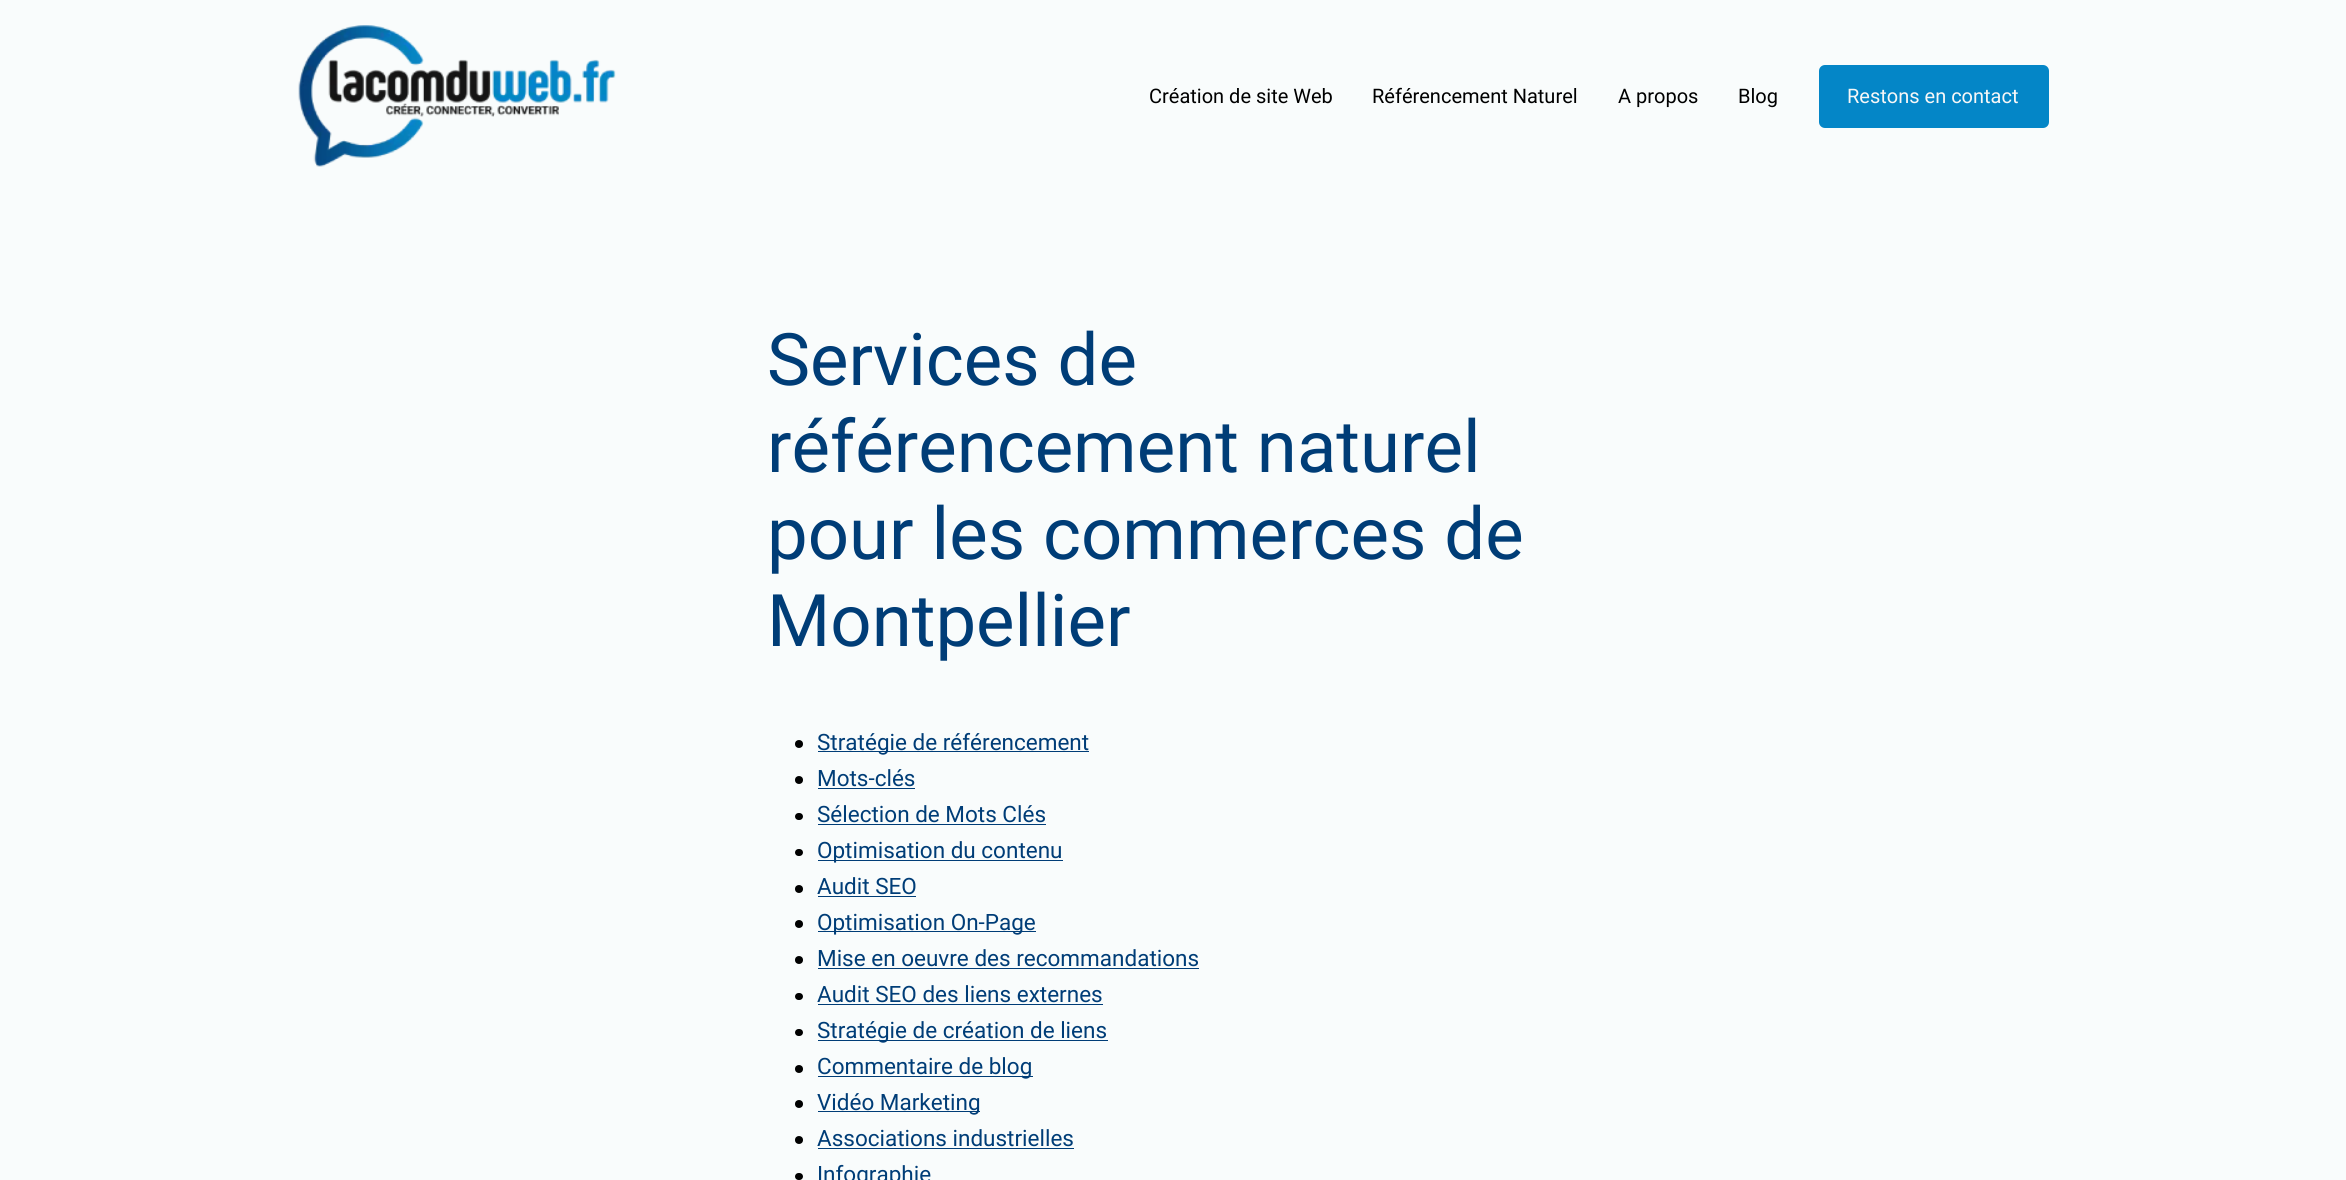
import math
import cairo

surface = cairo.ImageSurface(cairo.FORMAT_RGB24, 2346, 1180)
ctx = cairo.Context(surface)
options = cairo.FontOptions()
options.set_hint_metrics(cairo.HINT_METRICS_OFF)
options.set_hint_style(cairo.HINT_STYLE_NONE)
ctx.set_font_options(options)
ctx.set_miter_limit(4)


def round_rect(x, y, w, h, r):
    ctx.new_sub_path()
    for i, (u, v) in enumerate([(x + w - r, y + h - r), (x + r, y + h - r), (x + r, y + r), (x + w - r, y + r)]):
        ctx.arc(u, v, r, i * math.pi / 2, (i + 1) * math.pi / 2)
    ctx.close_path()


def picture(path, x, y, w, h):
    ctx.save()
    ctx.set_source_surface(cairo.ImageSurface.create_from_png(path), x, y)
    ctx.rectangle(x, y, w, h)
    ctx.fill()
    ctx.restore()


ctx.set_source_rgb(0.973, 0.988, 0.988)
ctx.paint()
picture("img1.png", 298, 25, 318, 142)
ctx.select_font_face("Roboto")
ctx.set_font_size(20)
ctx.set_source_rgb(0, 0, 0)
ctx.move_to(1149, 103)
ctx.show_text("Création de site Web")
ctx.move_to(1372, 103)
ctx.show_text("Référencement Naturel")
ctx.move_to(1618, 103)
ctx.show_text("A propos")
ctx.move_to(1738, 103)
ctx.show_text("Blog")
ctx.set_source_rgb(0.016, 0.525, 0.78)
round_rect(1819, 65, 230, 63, 6)
ctx.fill()
ctx.set_source_rgb(0.965, 0.965, 0.965)
ctx.move_to(1847, 103)
ctx.show_text("Restons en contact")
ctx.set_font_size(72.5)
ctx.set_source_rgb(0, 0.239, 0.467)
ctx.move_to(767, 385)
ctx.show_text("Services de")
ctx.move_to(767, 472)
ctx.show_text("référencement naturel")
ctx.move_to(767, 559)
ctx.show_text("pour les commerces de")
ctx.move_to(767, 646)
ctx.show_text("Montpellier")
ctx.set_source_rgb(0, 0, 0)
ctx.new_path()
ctx.arc(799, 744, 4, 0, 2 * math.pi)
ctx.fill()
ctx.set_source_rgb(0, 0.239, 0.467)
ctx.rectangle(818, 751, 271, 1)
ctx.fill()
ctx.set_font_size(22.5)
ctx.move_to(817, 750)
ctx.show_text("Stratégie de référencement")
ctx.set_source_rgb(0, 0, 0)
ctx.new_path()
ctx.arc(799, 780, 4, 0, 2 * math.pi)
ctx.fill()
ctx.set_source_rgb(0, 0.239, 0.467)
ctx.move_to(817, 786)
ctx.show_text("Mots-clés")
ctx.rectangle(818, 788, 97, 1)
ctx.fill()
ctx.set_source_rgb(0, 0, 0)
round_rect(795, 813, 8, 7, 3.5)
ctx.fill()
ctx.set_source_rgb(0, 0.239, 0.467)
ctx.move_to(817, 822)
ctx.show_text("Sélection de Mots Clés")
ctx.rectangle(818, 824, 228, 1)
ctx.fill()
ctx.set_source_rgb(0, 0, 0)
round_rect(795, 849, 8, 7, 3.5)
ctx.fill()
ctx.set_source_rgb(0, 0.239, 0.467)
ctx.rectangle(818, 860, 245, 1)
ctx.fill()
ctx.move_to(817, 858)
ctx.show_text("Optimisation du contenu")
ctx.set_source_rgb(0, 0, 0)
ctx.new_path()
ctx.arc(799, 889, 4, 0, 2 * math.pi)
ctx.fill()
ctx.set_source_rgb(0, 0.239, 0.467)
ctx.move_to(817, 894)
ctx.show_text("Audit SEO")
ctx.rectangle(818, 896, 98, 1)
ctx.fill()
ctx.set_source_rgb(0, 0, 0)
ctx.arc(799, 924, 4, 0, 2 * math.pi)
ctx.fill()
ctx.set_source_rgb(0, 0.239, 0.467)
ctx.rectangle(818, 931, 218, 1)
ctx.fill()
ctx.move_to(817, 930)
ctx.show_text("Optimisation On-Page")
ctx.set_source_rgb(0, 0, 0)
ctx.new_path()
ctx.arc(799, 960, 4, 0, 2 * math.pi)
ctx.fill()
ctx.set_source_rgb(0, 0.239, 0.467)
ctx.move_to(817, 966)
ctx.show_text("Mise en oeuvre des recommandations")
ctx.rectangle(818, 968, 381, 1)
ctx.fill()
ctx.set_source_rgb(0, 0, 0)
round_rect(795, 993, 8, 7, 3.5)
ctx.fill()
ctx.set_source_rgb(0, 0.239, 0.467)
ctx.move_to(817, 1002)
ctx.show_text("Audit SEO des liens externes")
ctx.rectangle(818, 1004, 285, 1)
ctx.fill()
ctx.set_source_rgb(0, 0, 0)
round_rect(795, 1029, 8, 7, 3.5)
ctx.fill()
ctx.set_source_rgb(0, 0.239, 0.467)
ctx.rectangle(818, 1040, 290, 1)
ctx.fill()
ctx.move_to(817, 1038)
ctx.show_text("Stratégie de création de liens")
ctx.set_source_rgb(0, 0, 0)
ctx.new_path()
ctx.arc(799, 1069, 4, 0, 2 * math.pi)
ctx.fill()
ctx.set_source_rgb(0, 0.239, 0.467)
ctx.rectangle(818, 1076, 215, 1)
ctx.fill()
ctx.move_to(817, 1074)
ctx.show_text("Commentaire de blog")
ctx.set_source_rgb(0, 0, 0)
ctx.new_path()
ctx.arc(799, 1104, 4, 0, 2 * math.pi)
ctx.fill()
ctx.set_source_rgb(0, 0.239, 0.467)
ctx.rectangle(818, 1111, 162, 1)
ctx.fill()
ctx.move_to(817, 1110)
ctx.show_text("Vidéo Marketing")
ctx.set_source_rgb(0, 0, 0)
ctx.new_path()
ctx.arc(799, 1140, 4, 0, 2 * math.pi)
ctx.fill()
ctx.set_source_rgb(0, 0.239, 0.467)
ctx.move_to(817, 1146)
ctx.show_text("Associations industrielles")
ctx.rectangle(818, 1148, 256, 1)
ctx.fill()
ctx.set_source_rgb(0, 0, 0)
round_rect(795, 1173, 8, 7, 3.5)
ctx.fill()
ctx.set_source_rgb(0, 0.239, 0.467)
ctx.move_to(817, 1182)
ctx.show_text("Infographie")
surface.write_to_png("page.png")
